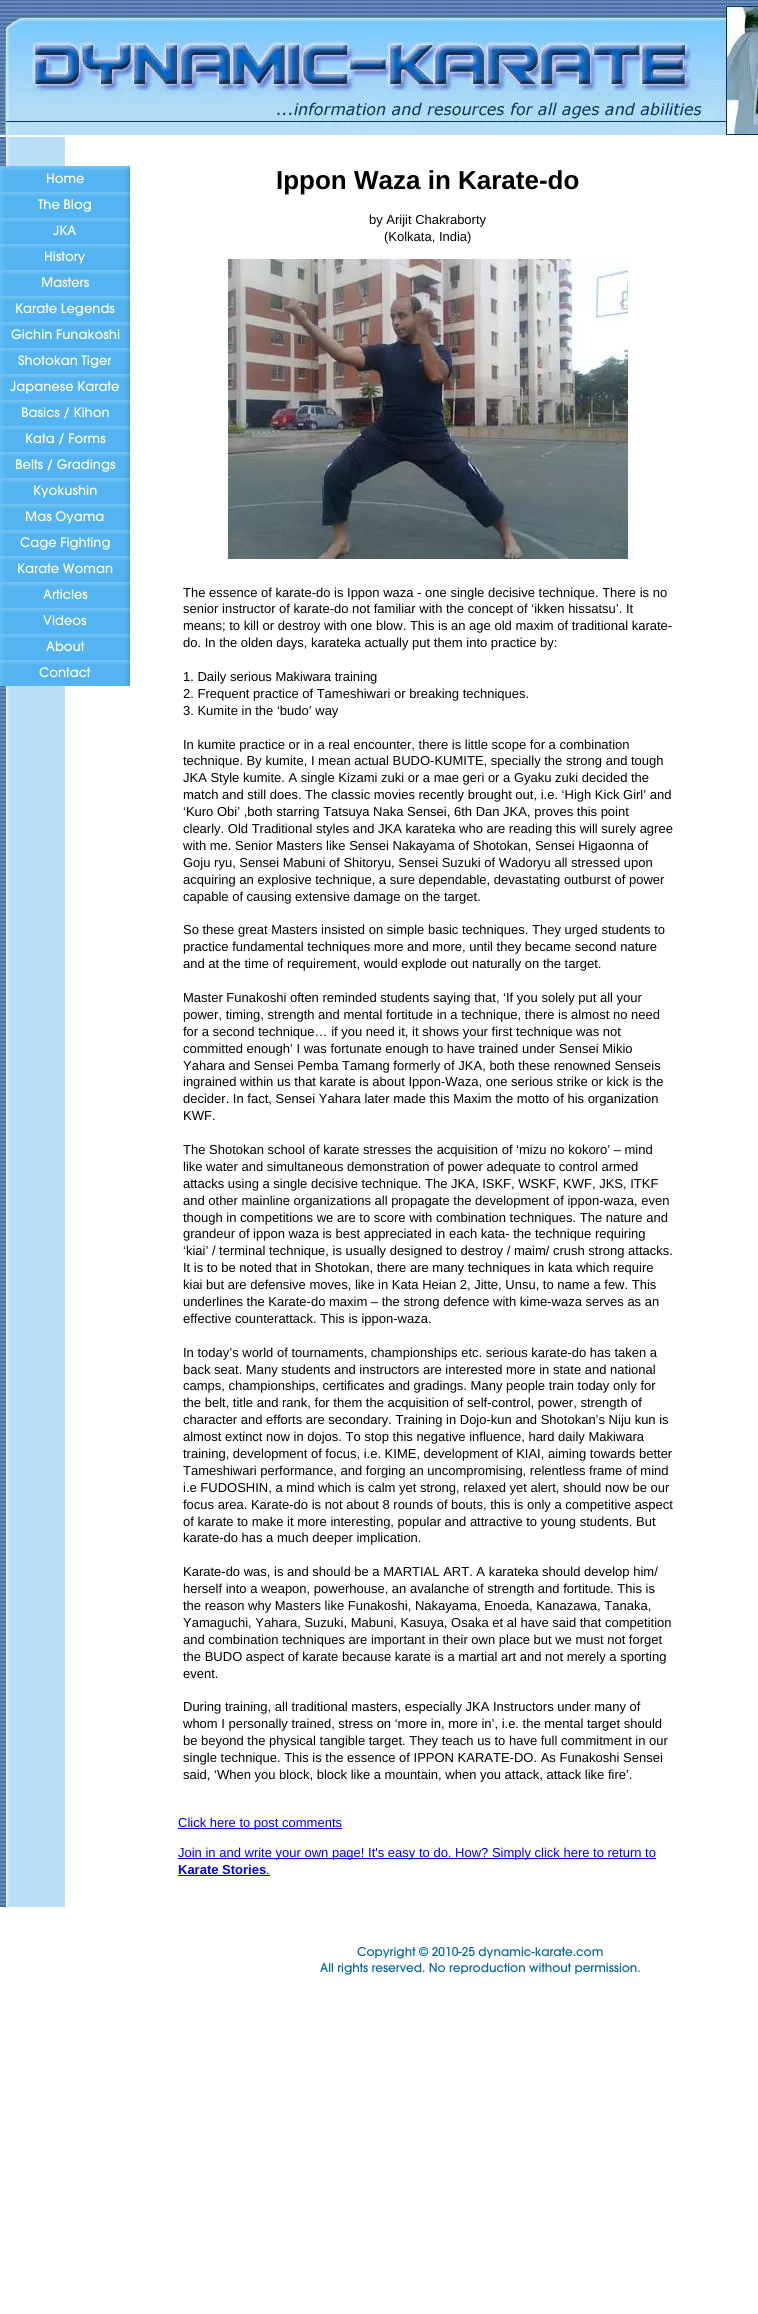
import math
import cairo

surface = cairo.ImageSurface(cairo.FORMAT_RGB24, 758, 2314)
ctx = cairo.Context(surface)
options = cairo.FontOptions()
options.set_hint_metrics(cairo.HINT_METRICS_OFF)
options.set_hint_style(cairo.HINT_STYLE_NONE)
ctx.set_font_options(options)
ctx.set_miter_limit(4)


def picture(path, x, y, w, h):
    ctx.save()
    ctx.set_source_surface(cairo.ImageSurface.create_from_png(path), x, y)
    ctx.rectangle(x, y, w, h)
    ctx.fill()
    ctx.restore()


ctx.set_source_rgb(1, 1, 1)
ctx.paint()
picture("img1.png", 0, 0, 758, 135)
picture("img2.png", 0, 137, 65, 1770)
picture("img3.png", 0, 166, 130, 26)
ctx.select_font_face("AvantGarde")
ctx.set_font_size(13)
ctx.set_source_rgb(1, 1, 1)
ctx.move_to(46, 183)
ctx.show_text("Home")
picture("img3.png", 0, 192, 130, 26)
ctx.move_to(38, 209)
ctx.show_text("The Blog")
picture("img3.png", 0, 218, 130, 26)
ctx.move_to(53, 235)
ctx.show_text("JKA")
picture("img3.png", 0, 244, 130, 26)
ctx.move_to(44, 261)
ctx.show_text("History")
picture("img3.png", 0, 270, 130, 26)
ctx.move_to(41, 287)
ctx.show_text("Masters")
picture("img3.png", 0, 296, 130, 26)
ctx.move_to(15, 313)
ctx.show_text("Karate Legends")
picture("img3.png", 0, 322, 130, 26)
ctx.move_to(11, 339)
ctx.show_text("Gichin Funakoshi")
picture("img3.png", 0, 348, 130, 26)
ctx.move_to(18, 365)
ctx.show_text("Shotokan Tiger")
picture("img3.png", 0, 374, 130, 26)
ctx.move_to(10, 391)
ctx.show_text("Japanese Karate")
picture("img3.png", 0, 400, 130, 26)
ctx.move_to(21, 417)
ctx.show_text("Basics / Kihon")
picture("img3.png", 0, 426, 130, 26)
ctx.move_to(25, 443)
ctx.show_text("Kata / Forms")
picture("img3.png", 0, 452, 130, 26)
ctx.move_to(15, 469)
ctx.show_text("Belts / Gradings")
picture("img3.png", 0, 478, 130, 26)
ctx.move_to(33, 495)
ctx.show_text("Kyokushin")
picture("img3.png", 0, 504, 130, 26)
ctx.move_to(25, 521)
ctx.show_text("Mas Oyama")
picture("img3.png", 0, 530, 130, 26)
ctx.move_to(20, 547)
ctx.show_text("Cage Fighting")
picture("img3.png", 0, 556, 130, 26)
ctx.move_to(17, 573)
ctx.show_text("Karate Woman")
picture("img3.png", 0, 582, 130, 26)
ctx.move_to(43, 599)
ctx.show_text("Articles")
picture("img3.png", 0, 608, 130, 26)
ctx.move_to(43, 625)
ctx.show_text("Videos")
picture("img3.png", 0, 634, 130, 26)
ctx.move_to(46, 651)
ctx.show_text("About")
picture("img3.png", 0, 660, 130, 26)
ctx.move_to(39, 677)
ctx.show_text("Contact")
ctx.select_font_face("Liberation Sans", cairo.FONT_SLANT_NORMAL, cairo.FONT_WEIGHT_BOLD)
ctx.set_font_size(26)
ctx.set_source_rgb(0, 0, 0)
ctx.move_to(276, 189)
ctx.show_text("Ippon Waza in Karate-do")
ctx.select_font_face("Liberation Sans")
ctx.set_font_size(13)
ctx.move_to(369, 224)
ctx.show_text("by Arijit Chakraborty")
ctx.move_to(384, 241)
ctx.show_text("(Kolkata, India)")
picture("img4.png", 228, 259, 400, 300)
ctx.move_to(183, 597)
ctx.show_text("The essence of karate-do is Ippon waza - one single decisive technique. There is no")
ctx.move_to(183, 613)
ctx.show_text("senior instructor of karate-do not familiar with the concept of ‘ikken hissatsu’. It")
ctx.move_to(183, 630)
ctx.show_text("means; to kill or destroy with one blow. This is an age old maxim of traditional karate-")
ctx.move_to(183, 647)
ctx.show_text("do. In the olden days, karateka actually put them into practice by:")
ctx.move_to(183, 681)
ctx.show_text("1. Daily serious Makiwara training")
ctx.move_to(183, 698)
ctx.show_text("2. Frequent practice of Tameshiwari or breaking techniques.")
ctx.move_to(183, 715)
ctx.show_text("3. Kumite in the ‘budo’ way")
ctx.move_to(183, 749)
ctx.show_text("In kumite practice or in a real encounter, there is little scope for a combination")
ctx.move_to(183, 765)
ctx.show_text("technique. By kumite, I mean actual BUDO-KUMITE, specially the strong and tough")
ctx.move_to(183, 782)
ctx.show_text("JKA Style kumite. A single Kizami zuki or a mae geri or a Gyaku zuki decided the")
ctx.move_to(183, 799)
ctx.show_text("match and still does. The classic movies recently brought out, i.e. ‘High Kick Girl’ and")
ctx.move_to(183, 816)
ctx.show_text("‘Kuro Obi’ ,both starring Tatsuya Naka Sensei, 6th Dan JKA, proves this point")
ctx.move_to(183, 833)
ctx.show_text("clearly. Old Traditional styles and JKA karateka who are reading this will surely agree")
ctx.move_to(183, 850)
ctx.show_text("with me. Senior Masters like Sensei Nakayama of Shotokan, Sensei Higaonna of")
ctx.move_to(183, 867)
ctx.show_text("Goju ryu, Sensei Mabuni of Shitoryu, Sensei Suzuki of Wadoryu all stressed upon")
ctx.move_to(183, 884)
ctx.show_text("acquiring an explosive technique, a sure dependable, devastating outburst of power")
ctx.move_to(183, 901)
ctx.show_text("capable of causing extensive damage on the target.")
ctx.move_to(183, 934)
ctx.show_text("So these great Masters insisted on simple basic techniques. They urged students to")
ctx.move_to(183, 951)
ctx.show_text("practice fundamental techniques more and more, until they became second nature")
ctx.move_to(183, 968)
ctx.show_text("and at the time of requirement, would explode out naturally on the target.")
ctx.move_to(183, 1002)
ctx.show_text("Master Funakoshi often reminded students saying that, ‘If you solely put all your")
ctx.move_to(183, 1019)
ctx.show_text("power, timing, strength and mental fortitude in a technique, there is almost no need")
ctx.move_to(183, 1036)
ctx.show_text("for a second technique… if you need it, it shows your first technique was not")
ctx.move_to(183, 1053)
ctx.show_text("committed enough’ I was fortunate enough to have trained under Sensei Mikio")
ctx.move_to(183, 1070)
ctx.show_text("Yahara and Sensei Pemba Tamang formerly of JKA, both these renowned Senseis")
ctx.move_to(183, 1086)
ctx.show_text("ingrained within us that karate is about Ippon-Waza, one serious strike or kick is the")
ctx.move_to(183, 1103)
ctx.show_text("decider. In fact, Sensei Yahara later made this Maxim the motto of his organization")
ctx.move_to(183, 1120)
ctx.show_text("KWF.")
ctx.move_to(183, 1154)
ctx.show_text("The Shotokan school of karate stresses the acquisition of ‘mizu no kokoro’ – mind")
ctx.move_to(183, 1171)
ctx.show_text("like water and simultaneous demonstration of power adequate to control armed")
ctx.move_to(183, 1188)
ctx.show_text("attacks using a single decisive technique. The JKA, ISKF, WSKF, KWF, JKS, ITKF")
ctx.move_to(183, 1205)
ctx.show_text("and other mainline organizations all propagate the development of ippon-waza, even")
ctx.move_to(183, 1222)
ctx.show_text("though in competitions we are to score with combination techniques. The nature and")
ctx.move_to(183, 1238)
ctx.show_text("grandeur of ippon waza is best appreciated in each kata- the technique requiring")
ctx.move_to(183, 1255)
ctx.show_text("‘kiai’ / terminal technique, is usually designed to destroy / maim/ crush strong attacks.")
ctx.move_to(183, 1272)
ctx.show_text("It is to be noted that in Shotokan, there are many techniques in kata which require")
ctx.move_to(183, 1289)
ctx.show_text("kiai but are defensive moves, like in Kata Heian 2, Jitte, Unsu, to name a few. This")
ctx.move_to(183, 1306)
ctx.show_text("underlines the Karate-do maxim – the strong defence with kime-waza serves as an")
ctx.move_to(183, 1323)
ctx.show_text("effective counterattack. This is ippon-waza.")
ctx.move_to(183, 1357)
ctx.show_text("In today’s world of tournaments, championships etc. serious karate-do has taken a")
ctx.move_to(183, 1374)
ctx.show_text("back seat. Many students and instructors are interested more in state and national")
ctx.move_to(183, 1390)
ctx.show_text("camps, championships, certificates and gradings. Many people train today only for")
ctx.move_to(183, 1407)
ctx.show_text("the belt, title and rank, for them the acquisition of self-control, power, strength of")
ctx.move_to(183, 1424)
ctx.show_text("character and efforts are secondary. Training in Dojo-kun and Shotokan’s Niju kun is")
ctx.move_to(183, 1441)
ctx.show_text("almost extinct now in dojos. To stop this negative influence, hard daily Makiwara")
ctx.move_to(183, 1458)
ctx.show_text("training, development of focus, i.e. KIME, development of KIAI, aiming towards better")
ctx.move_to(183, 1475)
ctx.show_text("Tameshiwari performance, and forging an uncompromising, relentless frame of mind")
ctx.move_to(183, 1492)
ctx.show_text("i.e FUDOSHIN, a mind which is calm yet strong, relaxed yet alert, should now be our")
ctx.move_to(183, 1509)
ctx.show_text("focus area. Karate-do is not about 8 rounds of bouts, this is only a competitive aspect")
ctx.move_to(183, 1526)
ctx.show_text("of karate to make it more interesting, popular and attractive to young students. But")
ctx.move_to(183, 1542)
ctx.show_text("karate-do has a much deeper implication.")
ctx.move_to(183, 1576)
ctx.show_text("Karate-do was, is and should be a MARTIAL ART. A karateka should develop him/")
ctx.move_to(183, 1593)
ctx.show_text("herself into a weapon, powerhouse, an avalanche of strength and fortitude. This is")
ctx.move_to(183, 1610)
ctx.show_text("the reason why Masters like Funakoshi, Nakayama, Enoeda, Kanazawa, Tanaka,")
ctx.move_to(183, 1627)
ctx.show_text("Yamaguchi, Yahara, Suzuki, Mabuni, Kasuya, Osaka et al have said that competition")
ctx.move_to(183, 1644)
ctx.show_text("and combination techniques are important in their own place but we must not forget")
ctx.move_to(183, 1661)
ctx.show_text("the BUDO aspect of karate because karate is a martial art and not merely a sporting")
ctx.move_to(183, 1678)
ctx.show_text("event.")
ctx.move_to(183, 1711)
ctx.show_text("During training, all traditional masters, especially JKA Instructors under many of")
ctx.move_to(183, 1728)
ctx.show_text("whom I personally trained, stress on ‘more in, more in’, i.e. the mental target should")
ctx.move_to(183, 1745)
ctx.show_text("be beyond the physical tangible target. They teach us to have full commitment in our")
ctx.move_to(183, 1762)
ctx.show_text("single technique. This is the essence of IPPON KARATE-DO. As Funakoshi Sensei")
ctx.move_to(183, 1779)
ctx.show_text("said, ‘When you block, block like a mountain, when you attack, attack like fire’.")
ctx.set_source_rgb(0, 0, 0.933)
ctx.rectangle(178, 1828, 164, 1)
ctx.fill()
ctx.move_to(178, 1827)
ctx.show_text("Click here to post comments")
ctx.rectangle(178, 1858, 478, 1)
ctx.fill()
ctx.move_to(178, 1857)
ctx.show_text("Join in and write your own page! It's easy to do. How? Simply click here to return to")
ctx.select_font_face("Liberation Sans", cairo.FONT_SLANT_NORMAL, cairo.FONT_WEIGHT_BOLD)
ctx.move_to(178, 1874)
ctx.show_text("Karate Stories")
ctx.select_font_face("Liberation Sans")
ctx.move_to(266, 1874)
ctx.show_text(".")
ctx.rectangle(178, 1875, 92, 1)
ctx.fill()
ctx.select_font_face("AvantGarde")
ctx.set_font_size(12)
ctx.set_source_rgb(0, 0.4, 0.6)
ctx.move_to(357, 1956)
ctx.show_text("Copyright © 2010-25 dynamic-karate.com")
ctx.move_to(320, 1972)
ctx.show_text("All rights reserved. No reproduction without permission.")
surface.write_to_png("page.png")
